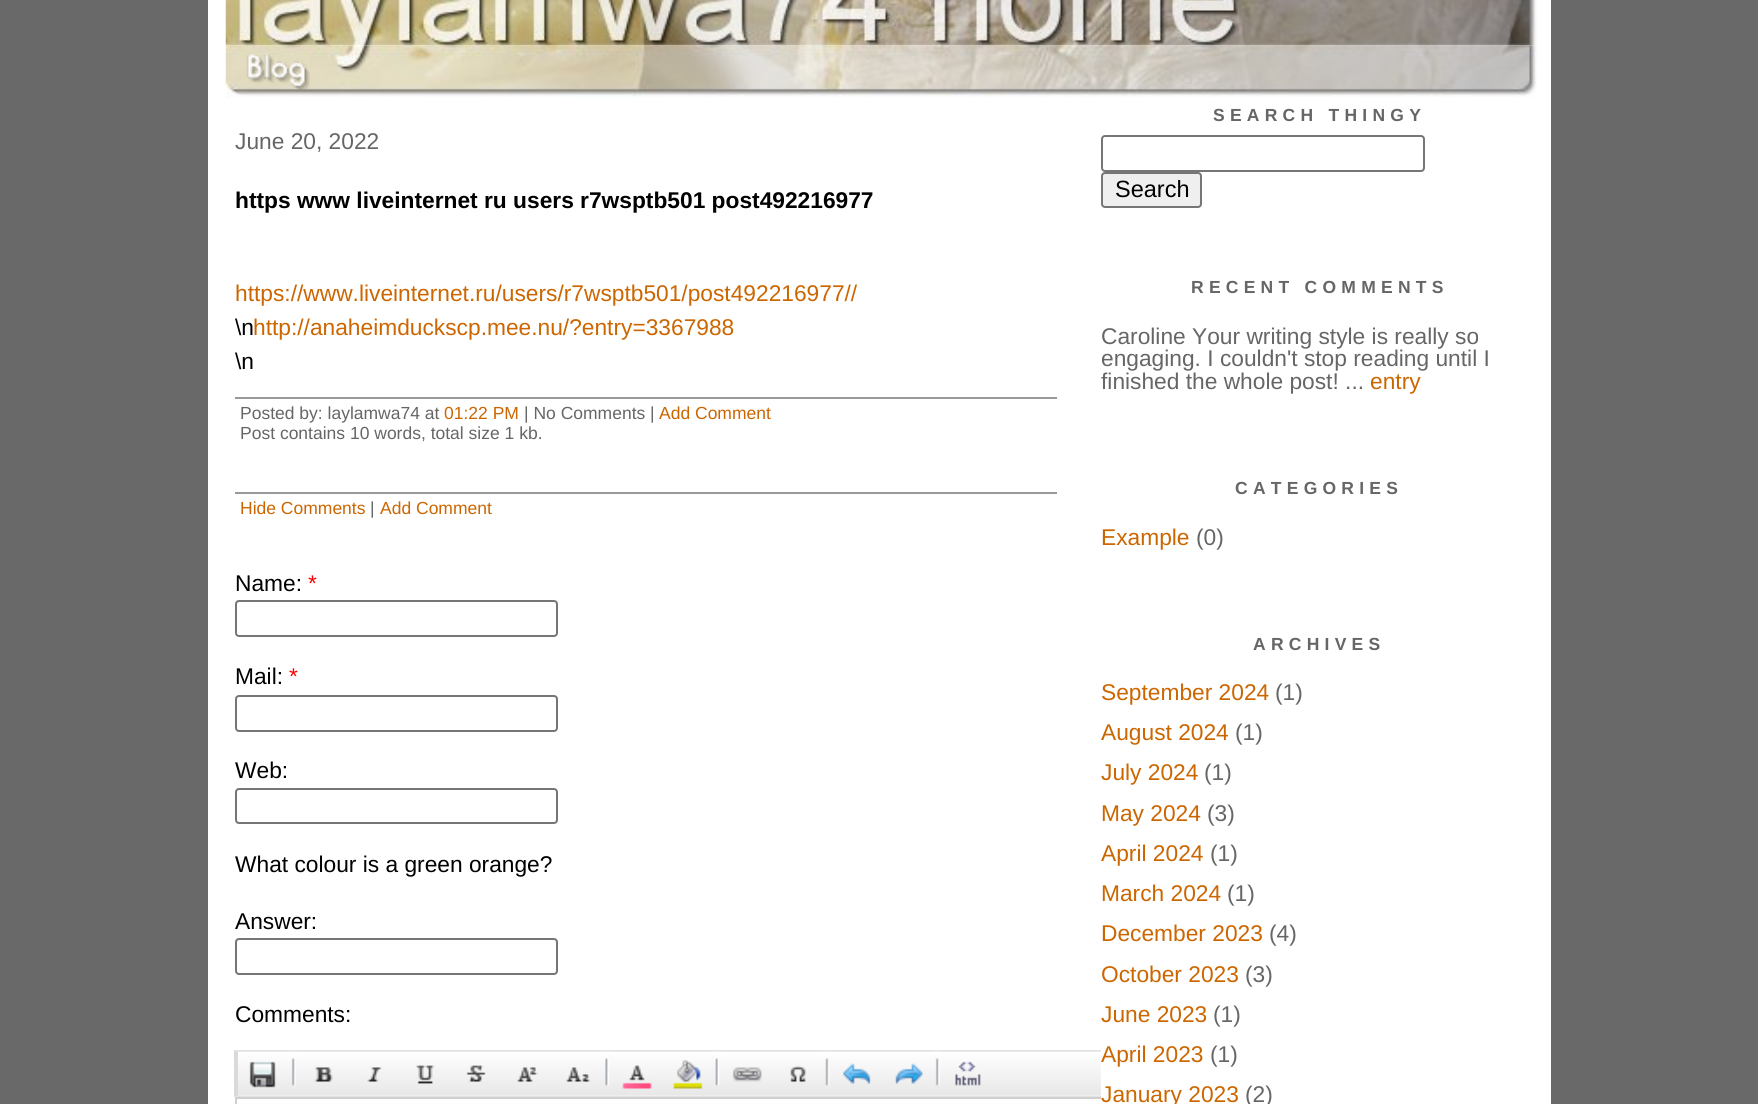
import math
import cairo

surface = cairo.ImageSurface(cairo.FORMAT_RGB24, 1758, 1104)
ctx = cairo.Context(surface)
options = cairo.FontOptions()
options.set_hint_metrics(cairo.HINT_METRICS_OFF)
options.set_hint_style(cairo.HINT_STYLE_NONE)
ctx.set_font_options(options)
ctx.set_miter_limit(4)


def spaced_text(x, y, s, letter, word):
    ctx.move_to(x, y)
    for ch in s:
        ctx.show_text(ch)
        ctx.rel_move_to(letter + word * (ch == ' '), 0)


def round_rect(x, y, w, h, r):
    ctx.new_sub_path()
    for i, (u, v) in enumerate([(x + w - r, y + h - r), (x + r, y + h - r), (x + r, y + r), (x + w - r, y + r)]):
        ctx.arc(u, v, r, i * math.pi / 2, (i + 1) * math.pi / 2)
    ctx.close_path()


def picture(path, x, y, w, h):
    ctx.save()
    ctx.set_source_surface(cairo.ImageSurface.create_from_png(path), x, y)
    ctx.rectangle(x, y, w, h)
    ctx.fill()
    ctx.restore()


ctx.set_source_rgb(0.412, 0.412, 0.412)
ctx.paint()
ctx.set_source_rgb(1, 1, 1)
ctx.rectangle(208, 0, 1343, 1104)
ctx.fill()
picture("img1.png", 225, 0, 1313, 46)
picture("img2.png", 225, 45, 1313, 53)
picture("img3.png", 246, 54, 64, 36)
ctx.select_font_face("Liberation Sans")
ctx.set_font_size(22.75)
ctx.set_source_rgb(0.4, 0.4, 0.4)
ctx.move_to(235, 149)
ctx.show_text("June 20, 2022")
ctx.select_font_face("Liberation Sans", cairo.FONT_SLANT_NORMAL, cairo.FONT_WEIGHT_BOLD)
ctx.set_source_rgb(0, 0, 0)
ctx.move_to(235, 208)
ctx.show_text("https www liveinternet ru users r7wsptb501 post492216977")
ctx.select_font_face("Liberation Sans")
ctx.set_source_rgb(0.8, 0.4, 0)
ctx.move_to(235, 301)
ctx.show_text("https://www.liveinternet.ru/users/r7wsptb501/post492216977//")
ctx.set_source_rgb(0, 0, 0)
ctx.move_to(235, 335)
ctx.show_text("\\n")
ctx.set_source_rgb(0.8, 0.4, 0)
ctx.move_to(253, 335)
ctx.show_text("http://anaheimduckscp.mee.nu/?entry=3367988")
ctx.set_source_rgb(0, 0, 0)
ctx.move_to(235, 369)
ctx.show_text("\\n")
ctx.set_source_rgb(0.6, 0.6, 0.6)
ctx.rectangle(235, 397, 822, 2)
ctx.fill()
ctx.set_font_size(17.5)
ctx.set_source_rgb(0.4, 0.4, 0.4)
ctx.move_to(240, 419)
ctx.show_text("Posted by: laylamwa74 at")
ctx.set_source_rgb(0.8, 0.4, 0)
ctx.move_to(444, 419)
ctx.show_text("01:22 PM")
ctx.set_source_rgb(0.4, 0.4, 0.4)
ctx.move_to(524, 419)
ctx.show_text("| No Comments |")
ctx.set_source_rgb(0.8, 0.4, 0)
ctx.move_to(659, 419)
ctx.show_text("Add Comment")
ctx.set_source_rgb(0.4, 0.4, 0.4)
ctx.move_to(240, 439)
ctx.show_text("Post contains 10 words, total size 1 kb.")
ctx.set_source_rgb(0.6, 0.6, 0.6)
ctx.rectangle(235, 492, 822, 2)
ctx.fill()
ctx.set_source_rgb(0.8, 0.4, 0)
ctx.move_to(240, 514)
ctx.show_text("Hide Comments")
ctx.set_source_rgb(0.4, 0.4, 0.4)
ctx.move_to(370, 514)
ctx.show_text("|")
ctx.set_source_rgb(0.8, 0.4, 0)
ctx.move_to(380, 514)
ctx.show_text("Add Comment")
ctx.set_font_size(22.75)
ctx.set_source_rgb(0, 0, 0)
ctx.move_to(235, 591)
ctx.show_text("Name:")
ctx.set_source_rgb(1, 0, 0)
ctx.move_to(308, 591)
ctx.show_text("*")
round_rect(236, 601, 321, 35, 3)
ctx.set_source_rgb(0.463, 0.463, 0.463)
ctx.stroke()
ctx.set_source_rgb(0, 0, 0)
ctx.move_to(235, 684)
ctx.show_text("Mail:")
ctx.set_source_rgb(1, 0, 0)
ctx.move_to(289, 684)
ctx.show_text("*")
round_rect(236, 696, 321, 35, 3)
ctx.set_source_rgb(0.463, 0.463, 0.463)
ctx.stroke()
ctx.set_source_rgb(0, 0, 0)
ctx.move_to(235, 778)
ctx.show_text("Web:")
round_rect(236, 789, 321, 34, 3)
ctx.set_source_rgb(0.463, 0.463, 0.463)
ctx.stroke()
ctx.set_source_rgb(0, 0, 0)
ctx.move_to(235, 872)
ctx.show_text("What colour is a green orange?")
ctx.move_to(235, 929)
ctx.show_text("Answer:")
round_rect(236, 939, 321, 35, 3)
ctx.set_source_rgb(0.463, 0.463, 0.463)
ctx.stroke()
ctx.set_source_rgb(0, 0, 0)
ctx.move_to(235, 1022)
ctx.show_text("Comments:")
picture("img4.png", 234, 1050, 867, 46)
ctx.save()
ctx.rectangle(226, 98, 875, 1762)
ctx.clip()
ctx.set_source_rgb(0.886, 0.886, 0.886)
ctx.new_path()
ctx.move_to(234, 1050)
ctx.line_to(1110, 1050)
ctx.line_to(1108, 1052)
ctx.line_to(238, 1052)
ctx.close_path()
ctx.fill()
ctx.new_path()
ctx.move_to(1110, 1097)
ctx.line_to(234, 1097)
ctx.line_to(238, 1096)
ctx.line_to(1108, 1096)
ctx.close_path()
ctx.fill()
ctx.restore()
ctx.set_source_rgb(0.855, 0.855, 0.855)
ctx.new_path()
ctx.move_to(234, 1097)
ctx.line_to(234, 1050)
ctx.line_to(238, 1052)
ctx.line_to(238, 1096)
ctx.close_path()
ctx.fill()
picture("img5.png", 238, 1051, 863, 45)
picture("img6.png", 249, 1061, 27, 27)
picture("img7.png", 289, 1051, 8, 35)
picture("img8.png", 314, 1067, 19, 15)
picture("img9.png", 367, 1067, 15, 15)
picture("img10.png", 416, 1065, 19, 19)
picture("img11.png", 466, 1065, 20, 17)
picture("img12.png", 517, 1067, 21, 15)
picture("img13.png", 566, 1067, 25, 15)
picture("img14.png", 602, 1051, 9, 35)
picture("img15.png", 622, 1065, 30, 24)
picture("img16.png", 673, 1060, 30, 29)
picture("img17.png", 712, 1051, 9, 35)
picture("img18.png", 732, 1067, 30, 15)
picture("img19.png", 790, 1065, 16, 17)
picture("img20.png", 823, 1051, 8, 35)
picture("img21.png", 843, 1063, 28, 21)
picture("img22.png", 895, 1063, 28, 21)
picture("img7.png", 933, 1051, 8, 35)
picture("img23.png", 955, 1061, 26, 25)
ctx.set_source_rgb(0.812, 0.812, 0.812)
ctx.rectangle(235, 1097, 866, 2)
ctx.fill()
ctx.rectangle(235, 1097, 2, 7)
ctx.fill()
ctx.select_font_face("Liberation Sans", cairo.FONT_SLANT_NORMAL, cairo.FONT_WEIGHT_BOLD)
ctx.set_font_size(17.5)
ctx.set_source_rgb(0.4, 0.4, 0.4)
spaced_text(1213, 121, "SEARCH THINGY", 5.25, 0)
round_rect(1102, 136, 322, 35, 3)
ctx.set_source_rgb(0.463, 0.463, 0.463)
ctx.stroke()
ctx.set_source_rgb(0.937, 0.937, 0.937)
round_rect(1102, 173, 99, 34, 3)
ctx.fill_preserve()
ctx.set_source_rgb(0.463, 0.463, 0.463)
ctx.stroke()
ctx.select_font_face("Liberation Sans")
ctx.set_font_size(23.5)
ctx.set_source_rgb(0, 0, 0)
ctx.move_to(1115, 197)
ctx.show_text("Search")
ctx.select_font_face("Liberation Sans", cairo.FONT_SLANT_NORMAL, cairo.FONT_WEIGHT_BOLD)
ctx.set_font_size(17.5)
ctx.set_source_rgb(0.4, 0.4, 0.4)
spaced_text(1191, 293, "RECENT COMMENTS", 5.25, 0)
ctx.select_font_face("Liberation Sans")
ctx.set_font_size(22.75)
ctx.move_to(1101, 344)
ctx.show_text("Caroline Your writing style is really so")
ctx.move_to(1101, 366)
ctx.show_text("engaging. I couldn't stop reading until I")
ctx.move_to(1101, 389)
ctx.show_text("finished the whole post! ...")
ctx.set_source_rgb(0.8, 0.4, 0)
ctx.move_to(1370, 389)
ctx.show_text("entry")
ctx.select_font_face("Liberation Sans", cairo.FONT_SLANT_NORMAL, cairo.FONT_WEIGHT_BOLD)
ctx.set_font_size(17.5)
ctx.set_source_rgb(0.4, 0.4, 0.4)
spaced_text(1235, 494, "CATEGORIES", 5.25, 0)
ctx.select_font_face("Liberation Sans")
ctx.set_font_size(22.75)
ctx.set_source_rgb(0.8, 0.4, 0)
ctx.move_to(1101, 545)
ctx.show_text("Example")
ctx.set_source_rgb(0.4, 0.4, 0.4)
ctx.move_to(1196, 545)
ctx.show_text("(0)")
ctx.select_font_face("Liberation Sans", cairo.FONT_SLANT_NORMAL, cairo.FONT_WEIGHT_BOLD)
ctx.set_font_size(17.5)
spaced_text(1253, 650, "ARCHIVES", 5.25, 0)
ctx.select_font_face("Liberation Sans")
ctx.set_font_size(22.75)
ctx.set_source_rgb(0.8, 0.4, 0)
ctx.move_to(1101, 700)
ctx.show_text("September 2024")
ctx.set_source_rgb(0.4, 0.4, 0.4)
ctx.move_to(1275, 700)
ctx.show_text("(1)")
ctx.set_source_rgb(0.8, 0.4, 0)
ctx.move_to(1101, 740)
ctx.show_text("August 2024")
ctx.set_source_rgb(0.4, 0.4, 0.4)
ctx.move_to(1235, 740)
ctx.show_text("(1)")
ctx.set_source_rgb(0.8, 0.4, 0)
ctx.move_to(1101, 780)
ctx.show_text("July 2024")
ctx.set_source_rgb(0.4, 0.4, 0.4)
ctx.move_to(1204, 780)
ctx.show_text("(1)")
ctx.set_source_rgb(0.8, 0.4, 0)
ctx.move_to(1101, 821)
ctx.show_text("May 2024")
ctx.set_source_rgb(0.4, 0.4, 0.4)
ctx.move_to(1207, 821)
ctx.show_text("(3)")
ctx.set_source_rgb(0.8, 0.4, 0)
ctx.move_to(1101, 861)
ctx.show_text("April 2024")
ctx.set_source_rgb(0.4, 0.4, 0.4)
ctx.move_to(1210, 861)
ctx.show_text("(1)")
ctx.set_source_rgb(0.8, 0.4, 0)
ctx.move_to(1101, 901)
ctx.show_text("March 2024")
ctx.set_source_rgb(0.4, 0.4, 0.4)
ctx.move_to(1227, 901)
ctx.show_text("(1)")
ctx.set_source_rgb(0.8, 0.4, 0)
ctx.move_to(1101, 941)
ctx.show_text("December 2023")
ctx.set_source_rgb(0.4, 0.4, 0.4)
ctx.move_to(1269, 941)
ctx.show_text("(4)")
ctx.set_source_rgb(0.8, 0.4, 0)
ctx.move_to(1101, 982)
ctx.show_text("October 2023")
ctx.set_source_rgb(0.4, 0.4, 0.4)
ctx.move_to(1245, 982)
ctx.show_text("(3)")
ctx.set_source_rgb(0.8, 0.4, 0)
ctx.move_to(1101, 1022)
ctx.show_text("June 2023")
ctx.set_source_rgb(0.4, 0.4, 0.4)
ctx.move_to(1213, 1022)
ctx.show_text("(1)")
ctx.set_source_rgb(0.8, 0.4, 0)
ctx.move_to(1101, 1062)
ctx.show_text("April 2023")
ctx.set_source_rgb(0.4, 0.4, 0.4)
ctx.move_to(1210, 1062)
ctx.show_text("(1)")
ctx.set_source_rgb(0.8, 0.4, 0)
ctx.move_to(1101, 1102)
ctx.show_text("January 2023")
ctx.set_source_rgb(0.4, 0.4, 0.4)
ctx.move_to(1245, 1102)
ctx.show_text("(2)")
surface.write_to_png("page.png")
